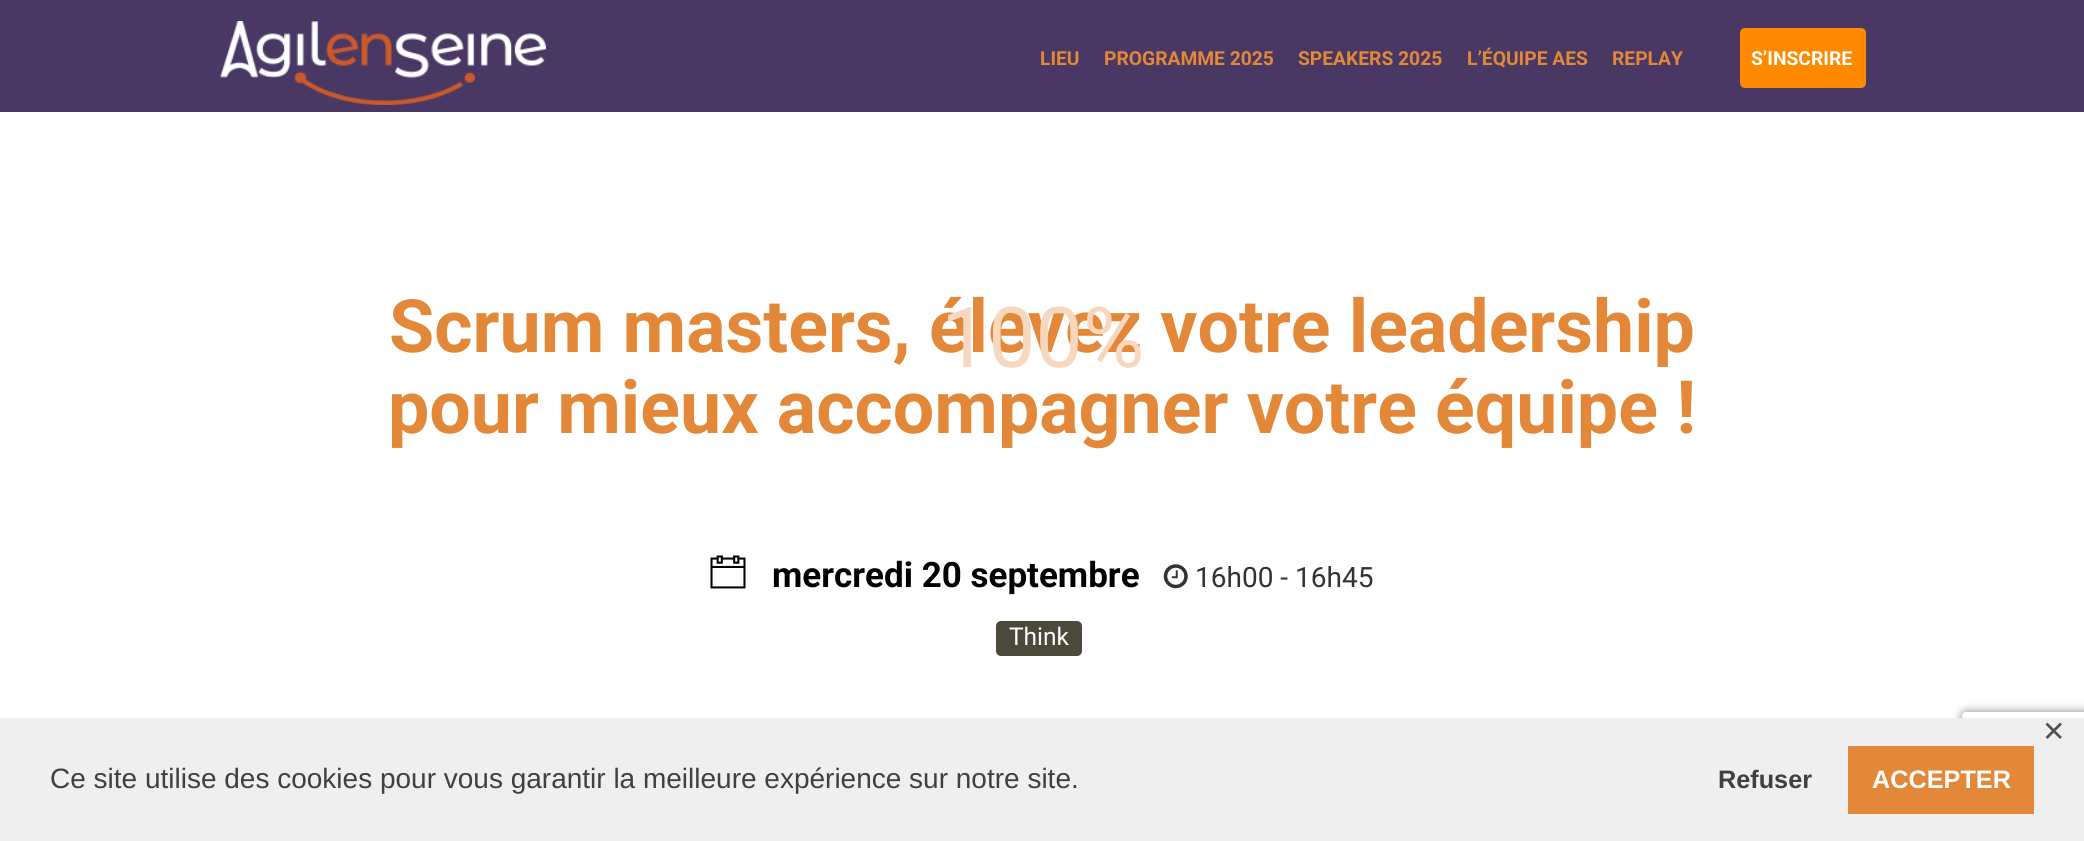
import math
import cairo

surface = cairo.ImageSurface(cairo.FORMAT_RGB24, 2084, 841)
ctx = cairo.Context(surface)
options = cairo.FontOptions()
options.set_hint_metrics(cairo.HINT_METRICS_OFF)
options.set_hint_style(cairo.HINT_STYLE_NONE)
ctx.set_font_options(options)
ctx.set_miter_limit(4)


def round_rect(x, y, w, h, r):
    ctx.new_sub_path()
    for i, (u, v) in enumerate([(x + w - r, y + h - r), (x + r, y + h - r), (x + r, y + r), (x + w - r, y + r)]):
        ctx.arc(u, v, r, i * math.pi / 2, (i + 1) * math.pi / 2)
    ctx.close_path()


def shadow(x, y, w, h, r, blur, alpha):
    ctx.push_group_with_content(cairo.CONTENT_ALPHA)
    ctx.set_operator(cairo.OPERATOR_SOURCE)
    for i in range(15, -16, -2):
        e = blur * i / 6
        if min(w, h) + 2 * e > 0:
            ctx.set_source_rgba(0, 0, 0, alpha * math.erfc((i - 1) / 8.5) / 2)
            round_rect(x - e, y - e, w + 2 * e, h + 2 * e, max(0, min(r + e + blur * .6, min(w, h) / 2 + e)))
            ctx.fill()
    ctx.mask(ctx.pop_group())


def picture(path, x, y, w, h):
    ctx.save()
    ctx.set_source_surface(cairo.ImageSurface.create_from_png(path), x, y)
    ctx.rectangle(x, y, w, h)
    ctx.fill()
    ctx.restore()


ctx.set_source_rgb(1, 1, 1)
ctx.paint()
ctx.set_source_rgb(0.282, 0.22, 0.388)
ctx.rectangle(0, 0, 2084, 112)
ctx.fill()
picture("img1.png", 220, 21, 326, 84)
ctx.select_font_face("Roboto", cairo.FONT_SLANT_NORMAL, cairo.FONT_WEIGHT_BOLD)
ctx.set_font_size(19.25)
ctx.set_source_rgb(0.89, 0.533, 0.224)
ctx.move_to(1040, 65)
ctx.show_text("LIEU")
ctx.move_to(1104, 65)
ctx.show_text("PROGRAMME 2025")
ctx.move_to(1298, 65)
ctx.show_text("SPEAKERS 2025")
ctx.move_to(1467, 65)
ctx.show_text("L’ÉQUIPE AES")
ctx.move_to(1612, 65)
ctx.show_text("REPLAY")
ctx.set_source_rgb(1, 0.541, 0)
round_rect(1740, 28, 126, 60, 5)
ctx.fill()
ctx.set_source_rgb(1, 1, 1)
ctx.move_to(1751, 65)
ctx.show_text("S’INSCRIRE")
ctx.set_font_size(73.5)
ctx.set_source_rgb(0.89, 0.533, 0.224)
ctx.move_to(389, 352)
ctx.show_text("Scrum masters, élevez votre leadership")
ctx.move_to(388, 433)
ctx.show_text("pour mieux accompagner votre équipe !")
picture("img2.png", 710, 555, 36, 34)
ctx.set_font_size(35)
ctx.set_source_rgb(0, 0, 0)
ctx.move_to(772, 587)
ctx.show_text("mercredi 20 septembre")
picture("img3.png", 1163, 564, 25, 25)
ctx.select_font_face("Roboto")
ctx.set_font_size(28)
ctx.set_source_rgb(0.2, 0.2, 0.2)
ctx.move_to(1195, 587)
ctx.show_text("16h00 - 16h45")
ctx.set_source_rgb(0.29, 0.286, 0.227)
round_rect(996, 621, 86, 35, 5)
ctx.fill()
ctx.set_font_size(24.5)
ctx.set_source_rgb(1, 1, 1)
ctx.move_to(1009, 645)
ctx.show_text("Think")
ctx.set_font_size(84)
ctx.set_source_rgb(0.965, 0.843, 0.741)
ctx.move_to(941, 367)
ctx.show_text("100%")
ctx.save()
ctx.set_fill_rule(cairo.FILL_RULE_EVEN_ODD)
ctx.new_path()
ctx.move_to(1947, 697)
ctx.line_to(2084, 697)
ctx.line_to(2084, 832)
ctx.line_to(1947, 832)
ctx.close_path()
ctx.move_to(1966, 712)
ctx.line_to(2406, 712)
ctx.curve_to(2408, 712, 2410, 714, 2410, 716)
ctx.line_to(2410, 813)
ctx.curve_to(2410, 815, 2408, 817, 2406, 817)
ctx.line_to(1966, 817)
ctx.curve_to(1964, 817, 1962, 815, 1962, 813)
ctx.line_to(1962, 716)
ctx.curve_to(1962, 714, 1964, 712, 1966, 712)
ctx.close_path()
ctx.clip()
ctx.set_source_rgb(0.502, 0.502, 0.502)
shadow(1962, 712, 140, 105, 4, 4.5, 1)
ctx.restore()
ctx.set_source_rgb(0.937, 0.937, 0.937)
ctx.rectangle(0, 718, 2084, 123)
ctx.fill()
ctx.select_font_face("DejaVu Sans")
ctx.set_font_size(28)
ctx.set_source_rgb(0.322, 0.322, 0.322)
ctx.move_to(2042, 741)
ctx.show_text("✕")
ctx.select_font_face("Liberation Sans")
ctx.set_source_rgb(0.251, 0.251, 0.251)
ctx.move_to(50, 788)
ctx.show_text("Ce site utilise des cookies pour vous garantir la meilleure expérience sur notre site.")
ctx.select_font_face("Liberation Sans", cairo.FONT_SLANT_NORMAL, cairo.FONT_WEIGHT_BOLD)
ctx.set_font_size(25.25)
ctx.move_to(1718, 788)
ctx.show_text("Refuser")
ctx.set_source_rgb(0.89, 0.533, 0.224)
ctx.rectangle(1848, 746, 186, 68)
ctx.fill()
ctx.set_source_rgb(1, 1, 1)
ctx.move_to(1872, 788)
ctx.show_text("ACCEPTER")
surface.write_to_png("page.png")
